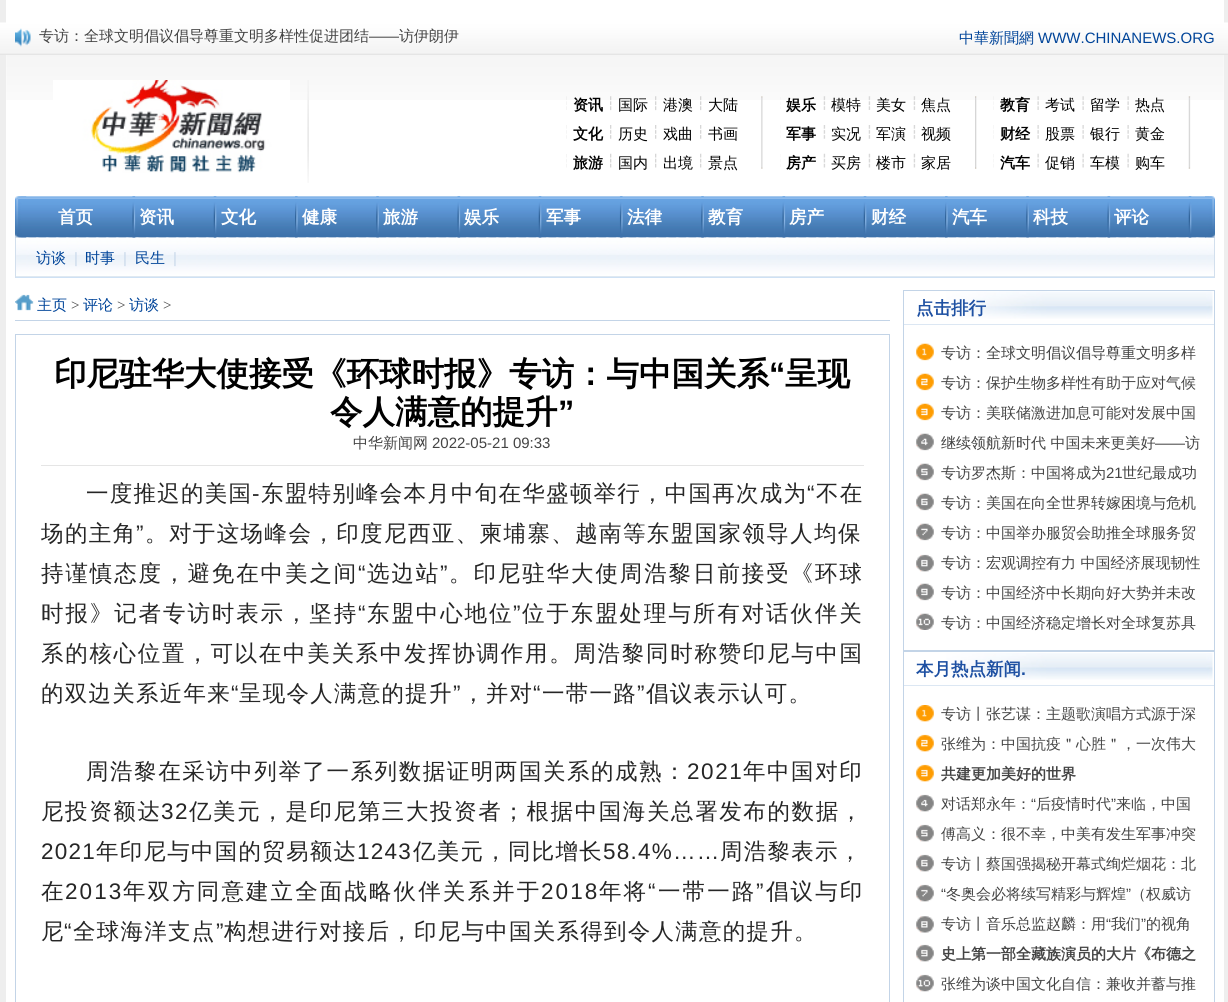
import math
import cairo

surface = cairo.ImageSurface(cairo.FORMAT_RGB24, 1228, 1002)
ctx = cairo.Context(surface)
options = cairo.FontOptions()
options.set_hint_metrics(cairo.HINT_METRICS_OFF)
options.set_hint_style(cairo.HINT_STYLE_NONE)
ctx.set_font_options(options)
ctx.set_miter_limit(4)


def spaced_text(x, y, s, letter, word):
    ctx.move_to(x, y)
    for ch in s:
        ctx.show_text(ch)
        ctx.rel_move_to(letter + word * (ch == ' '), 0)


def picture(path, x, y, w, h):
    ctx.save()
    ctx.set_source_surface(cairo.ImageSurface.create_from_png(path), x, y)
    ctx.rectangle(x, y, w, h)
    ctx.fill()
    ctx.restore()


ctx.set_source_rgb(0.933, 0.933, 0.933)
ctx.paint()
ctx.set_source_rgb(1, 1, 1)
ctx.rectangle(6, 0, 1218, 1002)
ctx.fill()
picture("img1.png", 0, 22, 1228, 33)
picture("img2.png", 15, 28, 16, 19)
ctx.select_font_face("WenQuanYi Zen Hei Medium")
ctx.set_font_size(15)
ctx.set_source_rgb(0.267, 0.267, 0.267)
ctx.move_to(39, 41)
ctx.show_text("专访：全球文明倡议倡导尊重文明多样性促进团结")
ctx.select_font_face("Liberation Sans")
ctx.move_to(369, 41)
ctx.show_text("——")
ctx.select_font_face("WenQuanYi Zen Hei Medium")
ctx.move_to(399, 41)
ctx.show_text("访伊朗伊")
ctx.set_source_rgb(0, 0.267, 0.6)
ctx.move_to(959, 43)
ctx.show_text("中華新聞網")
ctx.select_font_face("Liberation Sans")
ctx.move_to(1038, 43)
ctx.show_text("WWW.CHINANEWS.ORG")
picture("img3.png", 6, 55, 1218, 45)
picture("img4.png", 307, 80, 2, 103)
picture("img5.png", 53, 80, 237, 93)
picture("img6.png", 761, 96, 2, 73)
picture("img7.png", 566, 96, 1, 14)
ctx.select_font_face("WenQuanYi Zen Hei", cairo.FONT_SLANT_NORMAL, cairo.FONT_WEIGHT_BOLD)
ctx.set_source_rgb(0, 0, 0)
ctx.move_to(573, 110)
ctx.show_text("资讯")
picture("img8.png", 610, 96, 2, 15)
ctx.select_font_face("WenQuanYi Zen Hei Medium")
ctx.move_to(618, 110)
ctx.show_text("国际")
picture("img8.png", 655, 96, 2, 15)
ctx.move_to(663, 110)
ctx.show_text("港澳")
picture("img8.png", 700, 96, 2, 15)
ctx.move_to(708, 110)
ctx.show_text("大陆")
picture("img9.png", 566, 125, 1, 14)
ctx.select_font_face("WenQuanYi Zen Hei", cairo.FONT_SLANT_NORMAL, cairo.FONT_WEIGHT_BOLD)
ctx.move_to(573, 139)
ctx.show_text("文化")
picture("img10.png", 610, 125, 2, 14)
ctx.select_font_face("WenQuanYi Zen Hei Medium")
ctx.move_to(618, 139)
ctx.show_text("历史")
picture("img10.png", 655, 125, 2, 14)
ctx.move_to(663, 139)
ctx.show_text("戏曲")
picture("img10.png", 700, 125, 2, 14)
ctx.move_to(708, 139)
ctx.show_text("书画")
picture("img11.png", 566, 154, 1, 14)
ctx.select_font_face("WenQuanYi Zen Hei", cairo.FONT_SLANT_NORMAL, cairo.FONT_WEIGHT_BOLD)
ctx.move_to(573, 168)
ctx.show_text("旅游")
picture("img12.png", 610, 153, 2, 15)
ctx.select_font_face("WenQuanYi Zen Hei Medium")
ctx.move_to(618, 168)
ctx.show_text("国内")
picture("img12.png", 655, 153, 2, 15)
ctx.move_to(663, 168)
ctx.show_text("出境")
picture("img12.png", 700, 153, 2, 15)
ctx.move_to(708, 168)
ctx.show_text("景点")
picture("img13.png", 975, 96, 2, 73)
picture("img14.png", 780, 97, 1, 12)
ctx.select_font_face("WenQuanYi Zen Hei", cairo.FONT_SLANT_NORMAL, cairo.FONT_WEIGHT_BOLD)
ctx.move_to(786, 110)
ctx.show_text("娱乐")
picture("img15.png", 823, 96, 3, 14)
ctx.select_font_face("WenQuanYi Zen Hei Medium")
ctx.move_to(831, 110)
ctx.show_text("模特")
picture("img15.png", 868, 96, 3, 14)
ctx.move_to(876, 110)
ctx.show_text("美女")
picture("img15.png", 913, 96, 3, 14)
ctx.move_to(921, 110)
ctx.show_text("焦点")
picture("img16.png", 780, 125, 1, 13)
ctx.select_font_face("WenQuanYi Zen Hei", cairo.FONT_SLANT_NORMAL, cairo.FONT_WEIGHT_BOLD)
ctx.move_to(786, 139)
ctx.show_text("军事")
picture("img17.png", 823, 125, 3, 14)
ctx.select_font_face("WenQuanYi Zen Hei Medium")
ctx.move_to(831, 139)
ctx.show_text("实况")
picture("img17.png", 868, 125, 3, 14)
ctx.move_to(876, 139)
ctx.show_text("军演")
picture("img17.png", 913, 125, 3, 14)
ctx.move_to(921, 139)
ctx.show_text("视频")
picture("img18.png", 780, 154, 1, 13)
ctx.select_font_face("WenQuanYi Zen Hei", cairo.FONT_SLANT_NORMAL, cairo.FONT_WEIGHT_BOLD)
ctx.move_to(786, 168)
ctx.show_text("房产")
picture("img19.png", 823, 153, 3, 15)
ctx.select_font_face("WenQuanYi Zen Hei Medium")
ctx.move_to(831, 168)
ctx.show_text("买房")
picture("img19.png", 868, 153, 3, 15)
ctx.move_to(876, 168)
ctx.show_text("楼市")
picture("img19.png", 913, 153, 3, 15)
ctx.move_to(921, 168)
ctx.show_text("家居")
picture("img20.png", 1188, 96, 3, 73)
picture("img21.png", 993, 96, 1, 14)
ctx.select_font_face("WenQuanYi Zen Hei", cairo.FONT_SLANT_NORMAL, cairo.FONT_WEIGHT_BOLD)
ctx.move_to(1000, 110)
ctx.show_text("教育")
picture("img22.png", 1037, 96, 2, 14)
ctx.select_font_face("WenQuanYi Zen Hei Medium")
ctx.move_to(1045, 110)
ctx.show_text("考试")
picture("img22.png", 1082, 96, 2, 14)
ctx.move_to(1090, 110)
ctx.show_text("留学")
picture("img22.png", 1127, 96, 2, 14)
ctx.move_to(1135, 110)
ctx.show_text("热点")
picture("img23.png", 993, 125, 1, 14)
ctx.select_font_face("WenQuanYi Zen Hei", cairo.FONT_SLANT_NORMAL, cairo.FONT_WEIGHT_BOLD)
ctx.move_to(1000, 139)
ctx.show_text("财经")
picture("img24.png", 1037, 125, 2, 14)
ctx.select_font_face("WenQuanYi Zen Hei Medium")
ctx.move_to(1045, 139)
ctx.show_text("股票")
picture("img24.png", 1082, 125, 2, 14)
ctx.move_to(1090, 139)
ctx.show_text("银行")
picture("img24.png", 1127, 125, 2, 14)
ctx.move_to(1135, 139)
ctx.show_text("黄金")
picture("img25.png", 993, 154, 1, 14)
ctx.select_font_face("WenQuanYi Zen Hei", cairo.FONT_SLANT_NORMAL, cairo.FONT_WEIGHT_BOLD)
ctx.move_to(1000, 168)
ctx.show_text("汽车")
picture("img26.png", 1037, 153, 2, 15)
ctx.select_font_face("WenQuanYi Zen Hei Medium")
ctx.move_to(1045, 168)
ctx.show_text("促销")
picture("img26.png", 1082, 153, 2, 15)
ctx.move_to(1090, 168)
ctx.show_text("车模")
picture("img26.png", 1127, 153, 2, 15)
ctx.move_to(1135, 168)
ctx.show_text("购车")
picture("img27.png", 15, 196, 12, 42)
picture("img28.png", 1205, 196, 10, 42)
picture("img29.png", 21, 196, 1188, 42)
ctx.select_font_face("WenQuanYi Zen Hei", cairo.FONT_SLANT_NORMAL, cairo.FONT_WEIGHT_BOLD)
ctx.set_font_size(17.5)
ctx.set_source_rgb(1, 1, 1)
ctx.move_to(58, 223)
ctx.show_text("首页")
picture("img42.png", 15, 237, 1200, 41)
picture("img30.png", 132, 196, 4, 42)
ctx.move_to(139, 223)
ctx.show_text("资讯")
picture("img31.png", 213, 196, 4, 42)
ctx.move_to(221, 223)
ctx.show_text("文化")
picture("img32.png", 295, 196, 3, 42)
ctx.move_to(302, 223)
ctx.show_text("健康")
picture("img33.png", 376, 196, 3, 42)
ctx.move_to(383, 223)
ctx.show_text("旅游")
picture("img34.png", 457, 196, 4, 42)
ctx.move_to(464, 223)
ctx.show_text("娱乐")
picture("img35.png", 538, 196, 4, 42)
ctx.move_to(546, 223)
ctx.show_text("军事")
picture("img36.png", 619, 196, 4, 42)
ctx.move_to(627, 223)
ctx.show_text("法律")
picture("img37.png", 701, 196, 3, 42)
ctx.move_to(708, 223)
ctx.show_text("教育")
picture("img38.png", 782, 196, 4, 42)
ctx.move_to(789, 223)
ctx.show_text("房产")
picture("img39.png", 863, 196, 4, 42)
ctx.move_to(871, 223)
ctx.show_text("财经")
picture("img32.png", 945, 196, 3, 42)
ctx.move_to(952, 223)
ctx.show_text("汽车")
picture("img33.png", 1026, 196, 3, 42)
ctx.move_to(1033, 223)
ctx.show_text("科技")
picture("img40.png", 1107, 196, 4, 42)
ctx.move_to(1114, 223)
ctx.show_text("评论")
picture("img41.png", 1188, 196, 4, 42)
ctx.set_source_rgb(0.824, 0.875, 0.929)
ctx.rectangle(1214, 238, 1, 40)
ctx.fill()
ctx.rectangle(15, 238, 1, 40)
ctx.fill()
ctx.select_font_face("WenQuanYi Zen Hei Medium")
ctx.set_font_size(15)
ctx.set_source_rgb(0, 0.267, 0.6)
ctx.move_to(36, 263)
ctx.show_text("访谈")
ctx.select_font_face("Liberation Sans")
ctx.set_source_rgb(0.784, 0.847, 0.914)
ctx.move_to(74, 263)
ctx.show_text("|")
ctx.select_font_face("WenQuanYi Zen Hei Medium")
ctx.set_source_rgb(0, 0.267, 0.6)
ctx.move_to(85, 263)
ctx.show_text("时事")
ctx.select_font_face("Liberation Sans")
ctx.set_source_rgb(0.784, 0.847, 0.914)
ctx.move_to(123, 263)
ctx.show_text("|")
ctx.select_font_face("WenQuanYi Zen Hei Medium")
ctx.set_source_rgb(0, 0.267, 0.6)
ctx.move_to(135, 263)
ctx.show_text("民生")
ctx.select_font_face("Liberation Sans")
ctx.set_source_rgb(0.784, 0.847, 0.914)
ctx.move_to(173, 263)
ctx.show_text("|")
picture("img43.png", 15, 294, 19, 17)
ctx.set_source_rgb(0.765, 0.831, 0.906)
ctx.rectangle(15, 320, 875, 1)
ctx.fill()
ctx.select_font_face("WenQuanYi Zen Hei Medium")
ctx.set_source_rgb(0, 0.267, 0.6)
ctx.move_to(37, 310)
ctx.show_text("主页")
ctx.select_font_face("Liberation Serif")
ctx.set_source_rgb(0.267, 0.267, 0.267)
ctx.move_to(71, 310)
ctx.show_text(">")
ctx.select_font_face("WenQuanYi Zen Hei Medium")
ctx.set_source_rgb(0, 0.267, 0.6)
ctx.move_to(83, 310)
ctx.show_text("评论")
ctx.select_font_face("Liberation Serif")
ctx.set_source_rgb(0.267, 0.267, 0.267)
ctx.move_to(117, 310)
ctx.show_text(">")
ctx.select_font_face("WenQuanYi Zen Hei Medium")
ctx.set_source_rgb(0, 0.267, 0.6)
ctx.move_to(129, 310)
ctx.show_text("访谈")
ctx.select_font_face("Liberation Serif")
ctx.set_source_rgb(0.267, 0.267, 0.267)
ctx.move_to(163, 310)
ctx.show_text(">")
ctx.rectangle(15.5, 334.5, 874, 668)
ctx.set_source_rgb(0.765, 0.831, 0.906)
ctx.set_line_width(1)
ctx.stroke()
ctx.set_source_rgb(0.898, 0.898, 0.898)
ctx.rectangle(41, 465, 823, 1)
ctx.fill()
ctx.select_font_face("WenQuanYi Zen Hei", cairo.FONT_SLANT_NORMAL, cairo.FONT_WEIGHT_BOLD)
ctx.set_font_size(32.5)
ctx.set_source_rgb(0, 0, 0)
ctx.move_to(54, 385)
ctx.show_text("印尼驻华大使接受《环球时报》专访：与中国关系")
ctx.select_font_face("Liberation Sans", cairo.FONT_SLANT_NORMAL, cairo.FONT_WEIGHT_BOLD)
ctx.move_to(769, 385)
ctx.show_text("“")
ctx.select_font_face("WenQuanYi Zen Hei", cairo.FONT_SLANT_NORMAL, cairo.FONT_WEIGHT_BOLD)
ctx.move_to(785, 385)
ctx.show_text("呈现")
ctx.move_to(330, 423)
ctx.show_text("令人满意的提升")
ctx.select_font_face("Liberation Sans", cairo.FONT_SLANT_NORMAL, cairo.FONT_WEIGHT_BOLD)
ctx.move_to(558, 423)
ctx.show_text("”")
ctx.select_font_face("WenQuanYi Zen Hei Medium")
ctx.set_font_size(15)
ctx.set_source_rgb(0.267, 0.267, 0.267)
ctx.move_to(353, 448)
ctx.show_text("中华新闻网")
ctx.select_font_face("Liberation Sans")
ctx.move_to(432, 448)
ctx.show_text("2022-05-21 09:33")
ctx.select_font_face("WenQuanYi Zen Hei Medium")
ctx.set_font_size(22.5)
ctx.set_source_rgb(0.149, 0.149, 0.149)
spaced_text(86, 501, "一度推迟的美国", 1.25, 0)
spaced_text(261, 501, "东盟特别峰会本月中旬在华盛顿举行，中国再次成为", 1.25, 0)
ctx.select_font_face("Liberation Sans")
spaced_text(807, 501, "“", 1.25, 0)
ctx.select_font_face("WenQuanYi Zen Hei Medium")
spaced_text(816, 501, "不在", 1.25, 0)
ctx.select_font_face("Liberation Sans")
spaced_text(252, 501, "-", 1.25, 0)
ctx.select_font_face("WenQuanYi Zen Hei Medium")
spaced_text(41, 541, "场的主角", 1.4, 0)
ctx.select_font_face("Liberation Sans")
spaced_text(136, 541, "”", 1.4, 0)
ctx.select_font_face("WenQuanYi Zen Hei Medium")
spaced_text(145, 541, "。对于这场峰会，印度尼西亚、柬埔寨、越南等东盟国家领导人均保", 1.4, 0)
spaced_text(41, 581, "持谨慎态度，避免在中美之间", 1.9, 0)
ctx.select_font_face("Liberation Sans")
spaced_text(358, 581, "“", 1.9, 0)
ctx.select_font_face("WenQuanYi Zen Hei Medium")
spaced_text(367, 581, "选边站", 1.9, 0)
ctx.select_font_face("Liberation Sans")
spaced_text(440, 581, "”", 1.9, 0)
ctx.select_font_face("WenQuanYi Zen Hei Medium")
spaced_text(449, 581, "。印尼驻华大使周浩黎日前接受《环球", 1.9, 0)
spaced_text(41, 621, "时报》记者专访时表示，坚持", 1.9, 0)
ctx.select_font_face("Liberation Sans")
spaced_text(358, 621, "“", 1.9, 0)
ctx.select_font_face("WenQuanYi Zen Hei Medium")
spaced_text(367, 621, "东盟中心地位", 1.9, 0)
ctx.select_font_face("Liberation Sans")
spaced_text(513, 621, "”", 1.9, 0)
ctx.select_font_face("WenQuanYi Zen Hei Medium")
spaced_text(522, 621, "位于东盟处理与所有对话伙伴关", 1.9, 0)
spaced_text(41, 661, "系的核心位置，可以在中美关系中发挥协调作用。周浩黎同时称赞印尼与中国", 1.7, 0)
spaced_text(41, 701, "的双边关系近年来", 1.25, 0)
ctx.select_font_face("Liberation Sans")
spaced_text(231, 701, "“", 1.25, 0)
ctx.select_font_face("WenQuanYi Zen Hei Medium")
spaced_text(239, 701, "呈现令人满意的提升", 1.25, 0)
ctx.select_font_face("Liberation Sans")
spaced_text(453, 701, "”", 1.25, 0)
ctx.select_font_face("WenQuanYi Zen Hei Medium")
spaced_text(462, 701, "，并对", 1.25, 0)
ctx.select_font_face("Liberation Sans")
spaced_text(533, 701, "“", 1.25, 0)
ctx.select_font_face("WenQuanYi Zen Hei Medium")
spaced_text(542, 701, "一带一路", 1.25, 0)
ctx.select_font_face("Liberation Sans")
spaced_text(637, 701, "”", 1.25, 0)
ctx.select_font_face("WenQuanYi Zen Hei Medium")
spaced_text(646, 701, "倡议表示认可。", 1.25, 0)
spaced_text(86, 779, "周浩黎在采访中列举了一系列数据证明两国关系的成熟：", 1.55, 0)
ctx.select_font_face("Liberation Sans")
spaced_text(687, 779, "2021", 1.55, 0)
ctx.select_font_face("WenQuanYi Zen Hei Medium")
spaced_text(743, 779, "年中国对印", 1.55, 0)
spaced_text(41, 819, "尼投资额达", 1.6, 0)
ctx.select_font_face("Liberation Sans")
spaced_text(161, 819, "32", 1.6, 0)
ctx.select_font_face("WenQuanYi Zen Hei Medium")
spaced_text(189, 819, "亿美元，是印尼第三大投资者；根据中国海关总署发布的数据，", 1.6, 0)
ctx.select_font_face("Liberation Sans")
spaced_text(41, 859, "2021", 1.25, 0)
ctx.select_font_face("WenQuanYi Zen Hei Medium")
spaced_text(96, 859, "年印尼与中国的贸易额达", 1.25, 0)
ctx.select_font_face("Liberation Sans")
spaced_text(357, 859, "1243", 1.25, 0)
ctx.select_font_face("WenQuanYi Zen Hei Medium")
spaced_text(413, 859, "亿美元，同比增长", 1.25, 0)
ctx.select_font_face("Liberation Sans")
spaced_text(603, 859, "58.4%……", 1.25, 0)
ctx.select_font_face("WenQuanYi Zen Hei Medium")
spaced_text(720, 859, "周浩黎表示，", 1.25, 0)
spaced_text(41, 899, "在", 2.1, 0)
ctx.select_font_face("Liberation Sans")
spaced_text(65, 899, "2013", 2.1, 0)
ctx.select_font_face("WenQuanYi Zen Hei Medium")
spaced_text(123, 899, "年双方同意建立全面战略伙伴关系并于", 2.1, 0)
ctx.select_font_face("Liberation Sans")
spaced_text(541, 899, "2018", 2.1, 0)
ctx.select_font_face("WenQuanYi Zen Hei Medium")
spaced_text(599, 899, "年将", 2.1, 0)
ctx.select_font_face("Liberation Sans")
spaced_text(648, 899, "“", 2.1, 0)
ctx.select_font_face("WenQuanYi Zen Hei Medium")
spaced_text(658, 899, "一带一路", 2.1, 0)
ctx.select_font_face("Liberation Sans")
spaced_text(756, 899, "”", 2.1, 0)
ctx.select_font_face("WenQuanYi Zen Hei Medium")
spaced_text(766, 899, "倡议与印", 2.1, 0)
spaced_text(41, 939, "尼", 1.25, 0)
ctx.select_font_face("Liberation Sans")
spaced_text(64, 939, "“", 1.25, 0)
ctx.select_font_face("WenQuanYi Zen Hei Medium")
spaced_text(73, 939, "全球海洋支点", 1.25, 0)
ctx.select_font_face("Liberation Sans")
spaced_text(216, 939, "”", 1.25, 0)
ctx.select_font_face("WenQuanYi Zen Hei Medium")
spaced_text(224, 939, "构想进行对接后，印尼与中国关系得到令人满意的提升。", 1.25, 0)
ctx.rectangle(903.5, 290.5, 311, 360)
ctx.set_source_rgb(0.765, 0.831, 0.906)
ctx.stroke()
picture("img44.png", 946, 291, 267, 28)
ctx.set_source_rgb(0.863, 0.906, 0.953)
ctx.rectangle(904, 324, 310, 1)
ctx.fill()
ctx.select_font_face("WenQuanYi Zen Hei", cairo.FONT_SLANT_NORMAL, cairo.FONT_WEIGHT_BOLD)
ctx.set_font_size(17.5)
ctx.set_source_rgb(0.118, 0.314, 0.635)
ctx.move_to(916, 314)
ctx.show_text("点击排行")
picture("img45.png", 916, 343, 18, 287)
ctx.select_font_face("WenQuanYi Zen Hei Medium")
ctx.set_font_size(15)
ctx.set_source_rgb(0.267, 0.267, 0.267)
ctx.move_to(941, 358)
ctx.show_text("专访：全球文明倡议倡导尊重文明多样")
ctx.move_to(941, 388)
ctx.show_text("专访：保护生物多样性有助于应对气候")
ctx.move_to(941, 418)
ctx.show_text("专访：美联储激进加息可能对发展中国")
ctx.move_to(941, 448)
ctx.show_text("继续领航新时代 中国未来更美好")
ctx.select_font_face("Liberation Sans")
ctx.move_to(1155, 448)
ctx.show_text("——")
ctx.select_font_face("WenQuanYi Zen Hei Medium")
ctx.move_to(1185, 448)
ctx.show_text("访")
ctx.move_to(941, 478)
ctx.show_text("专访罗杰斯：中国将成为")
ctx.select_font_face("Liberation Sans")
ctx.move_to(1106, 478)
ctx.show_text("21")
ctx.select_font_face("WenQuanYi Zen Hei Medium")
ctx.move_to(1122, 478)
ctx.show_text("世纪最成功")
ctx.move_to(941, 508)
ctx.show_text("专访：美国在向全世界转嫁困境与危机")
ctx.move_to(941, 538)
ctx.show_text("专访：中国举办服贸会助推全球服务贸")
ctx.move_to(941, 568)
ctx.show_text("专访：宏观调控有力 中国经济展现韧性")
ctx.move_to(941, 598)
ctx.show_text("专访：中国经济中长期向好大势并未改")
ctx.move_to(941, 628)
ctx.show_text("专访：中国经济稳定增长对全球复苏具")
ctx.rectangle(903.5, 651.5, 311, 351)
ctx.set_source_rgb(0.765, 0.831, 0.906)
ctx.stroke()
picture("img46.png", 946, 653, 267, 27)
ctx.set_source_rgb(0.863, 0.906, 0.953)
ctx.rectangle(904, 685, 310, 1)
ctx.fill()
ctx.select_font_face("WenQuanYi Zen Hei", cairo.FONT_SLANT_NORMAL, cairo.FONT_WEIGHT_BOLD)
ctx.set_font_size(17.5)
ctx.set_source_rgb(0.118, 0.314, 0.635)
ctx.move_to(916, 675)
ctx.show_text("本月热点新闻")
ctx.select_font_face("Liberation Sans", cairo.FONT_SLANT_NORMAL, cairo.FONT_WEIGHT_BOLD)
ctx.move_to(1021, 675)
ctx.show_text(".")
picture("img47.png", 916, 705, 18, 287)
ctx.select_font_face("WenQuanYi Zen Hei Medium")
ctx.set_font_size(15)
ctx.set_source_rgb(0.267, 0.267, 0.267)
ctx.move_to(941, 719)
ctx.show_text("专访丨张艺谋：主题歌演唱方式源于深")
ctx.move_to(941, 749)
ctx.show_text("张维为：中国抗疫＂心胜＂，一次伟大")
ctx.select_font_face("WenQuanYi Zen Hei", cairo.FONT_SLANT_NORMAL, cairo.FONT_WEIGHT_BOLD)
ctx.move_to(941, 779)
ctx.show_text("共建更加美好的世界")
ctx.select_font_face("WenQuanYi Zen Hei Medium")
ctx.move_to(941, 809)
ctx.show_text("对话郑永年：")
ctx.select_font_face("Liberation Sans")
ctx.move_to(1031, 809)
ctx.show_text("“")
ctx.select_font_face("WenQuanYi Zen Hei Medium")
ctx.move_to(1036, 809)
ctx.show_text("后疫情时代")
ctx.select_font_face("Liberation Sans")
ctx.move_to(1111, 809)
ctx.show_text("”")
ctx.select_font_face("WenQuanYi Zen Hei Medium")
ctx.move_to(1116, 809)
ctx.show_text("来临，中国")
ctx.move_to(941, 839)
ctx.show_text("傅高义：很不幸，中美有发生军事冲突")
ctx.move_to(941, 869)
ctx.show_text("专访丨蔡国强揭秘开幕式绚烂烟花：北")
ctx.select_font_face("Liberation Sans")
ctx.move_to(941, 899)
ctx.show_text("“")
ctx.select_font_face("WenQuanYi Zen Hei Medium")
ctx.move_to(946, 899)
ctx.show_text("冬奥会必将续写精彩与辉煌")
ctx.select_font_face("Liberation Sans")
ctx.move_to(1126, 899)
ctx.show_text("”")
ctx.select_font_face("WenQuanYi Zen Hei Medium")
ctx.move_to(1131, 899)
ctx.show_text("（权威访")
ctx.move_to(941, 929)
ctx.show_text("专访丨音乐总监赵麟：用")
ctx.select_font_face("Liberation Sans")
ctx.move_to(1106, 929)
ctx.show_text("“")
ctx.select_font_face("WenQuanYi Zen Hei Medium")
ctx.move_to(1111, 929)
ctx.show_text("我们")
ctx.select_font_face("Liberation Sans")
ctx.move_to(1141, 929)
ctx.show_text("”")
ctx.select_font_face("WenQuanYi Zen Hei Medium")
ctx.move_to(1146, 929)
ctx.show_text("的视角")
ctx.select_font_face("WenQuanYi Zen Hei", cairo.FONT_SLANT_NORMAL, cairo.FONT_WEIGHT_BOLD)
ctx.move_to(941, 959)
ctx.show_text("史上第一部全藏族演员的大片《布德之")
ctx.select_font_face("WenQuanYi Zen Hei Medium")
ctx.move_to(941, 989)
ctx.show_text("张维为谈中国文化自信：兼收并蓄与推")
surface.write_to_png("page.png")
